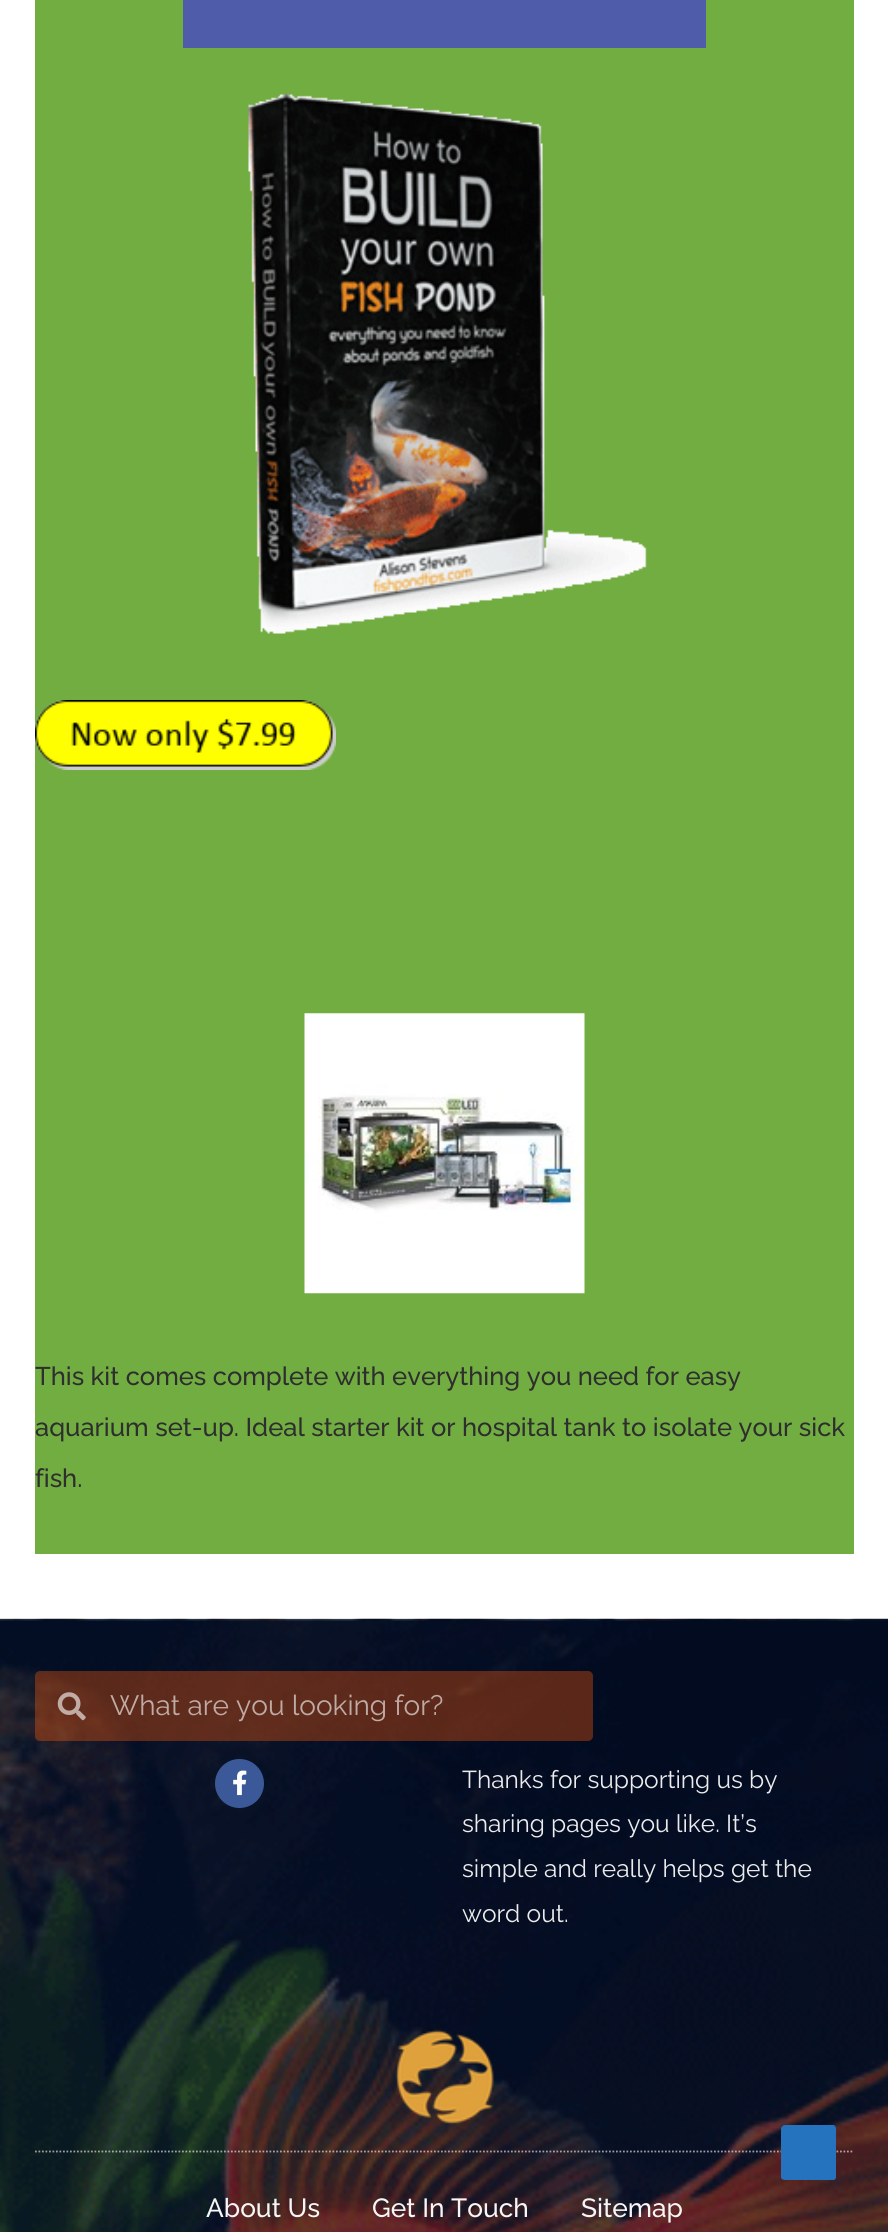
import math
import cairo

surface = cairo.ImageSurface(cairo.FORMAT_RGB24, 888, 2232)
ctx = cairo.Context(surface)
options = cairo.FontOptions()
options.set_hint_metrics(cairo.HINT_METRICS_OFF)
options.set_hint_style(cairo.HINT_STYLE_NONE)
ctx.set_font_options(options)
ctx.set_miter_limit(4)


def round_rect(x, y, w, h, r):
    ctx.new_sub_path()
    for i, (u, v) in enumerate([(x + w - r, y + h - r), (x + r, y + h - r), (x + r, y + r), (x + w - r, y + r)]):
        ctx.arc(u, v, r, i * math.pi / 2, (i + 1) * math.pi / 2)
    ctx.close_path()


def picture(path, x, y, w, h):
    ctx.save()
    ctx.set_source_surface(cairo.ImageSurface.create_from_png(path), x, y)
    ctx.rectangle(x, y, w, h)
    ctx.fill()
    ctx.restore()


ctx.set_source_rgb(1, 1, 1)
ctx.paint()
ctx.set_source_rgb(0.447, 0.678, 0.259)
ctx.rectangle(35, 0, 819, 1554)
ctx.fill()
ctx.set_source_rgb(0.31, 0.361, 0.667)
ctx.rectangle(183, 0, 523, 48)
ctx.fill()
picture("img1.png", 248, 94, 399, 540)
picture("img2.png", 35, 700, 301, 70)
picture("img3.png", 304, 1013, 281, 281)
ctx.select_font_face("Raleway Medium")
ctx.set_font_size(25.55)
ctx.set_source_rgb(0.176, 0.18, 0.176)
ctx.move_to(35, 1385)
ctx.show_text("This kit comes complete with everything you need for easy")
ctx.move_to(35, 1436)
ctx.show_text("aquarium set-up. Ideal starter kit or hospital tank to isolate your sick")
ctx.move_to(35, 1487)
ctx.show_text("fish.")
picture("img4.png", 0, 1618, 888, 614)
ctx.set_source_rgba(0.969, 0.357, 0.047, 0.36)
round_rect(35, 1671, 558, 70, 5)
ctx.fill()
picture("img5.png", 57, 1692, 29, 29)
ctx.select_font_face("Raleway")
ctx.set_font_size(28)
ctx.set_source_rgb(0.749, 0.667, 0.643)
ctx.move_to(110, 1715)
ctx.show_text("What are you looking for?")
ctx.set_source_rgb(0.231, 0.349, 0.596)
ctx.new_path()
ctx.arc(239.5, 1783.5, 24.5, 0, 2 * math.pi)
ctx.fill()
picture("img6.png", 233, 1770, 14, 26)
ctx.set_font_size(24.5)
ctx.set_source_rgb(0.925, 0.925, 0.925)
ctx.move_to(462, 1788)
ctx.show_text("Thanks for supporting us by")
ctx.move_to(462, 1832)
ctx.show_text("sharing pages you like. It’s")
ctx.move_to(462, 1877)
ctx.show_text("simple and really helps get the")
ctx.move_to(462, 1922)
ctx.show_text("word out.")
picture("img7.png", 395, 2029, 99, 96)
ctx.new_path()
ctx.move_to(35, 2151.5)
ctx.line_to(854, 2151.5)
ctx.set_source_rgba(1, 1, 1, 0.59)
ctx.set_line_width(1.8)
ctx.set_dash([1.75, 1.75])
ctx.stroke()
ctx.select_font_face("Raleway Medium")
ctx.set_font_size(26.25)
ctx.set_source_rgb(0.961, 0.961, 0.961)
ctx.move_to(206, 2217)
ctx.show_text("About Us")
ctx.move_to(372, 2217)
ctx.show_text("Get In Touch")
ctx.move_to(581, 2217)
ctx.show_text("Sitemap")
ctx.set_source_rgb(0.145, 0.447, 0.745)
ctx.new_path()
ctx.move_to(833, 2180)
ctx.line_to(785, 2180)
ctx.curve_to(783, 2180, 781, 2179, 781, 2177)
ctx.line_to(781, 2129)
ctx.curve_to(781, 2127, 783, 2125, 785, 2125)
ctx.line_to(833, 2125)
ctx.curve_to(835, 2125, 836, 2127, 836, 2129)
ctx.line_to(836, 2177)
ctx.curve_to(836, 2179, 835, 2180, 833, 2180)
ctx.close_path()
ctx.fill()
surface.write_to_png("page.png")
